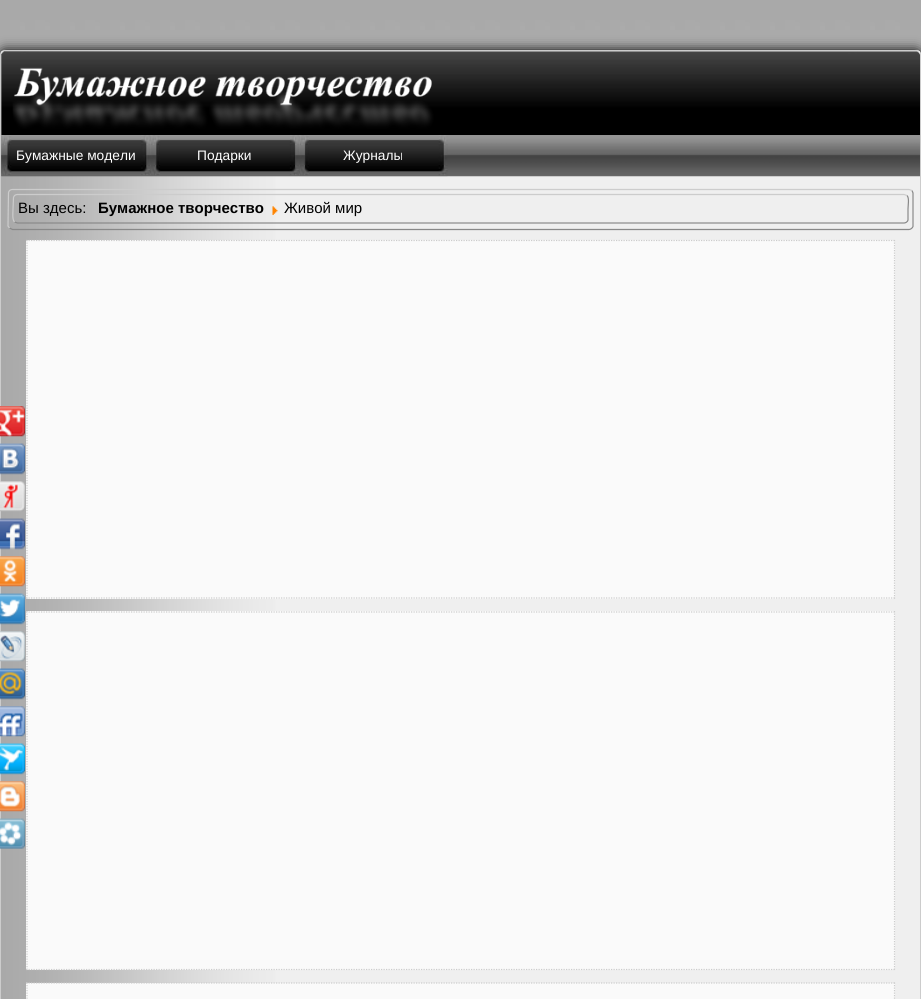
import math
import cairo

surface = cairo.ImageSurface(cairo.FORMAT_RGB24, 921, 999)
ctx = cairo.Context(surface)
options = cairo.FontOptions()
options.set_hint_metrics(cairo.HINT_METRICS_OFF)
options.set_hint_style(cairo.HINT_STYLE_NONE)
ctx.set_font_options(options)
ctx.set_miter_limit(4)


def round_rect(x, y, w, h, r):
    ctx.new_sub_path()
    for i, (u, v) in enumerate([(x + w - r, y + h - r), (x + r, y + h - r), (x + r, y + r), (x + w - r, y + r)]):
        ctx.arc(u, v, r, i * math.pi / 2, (i + 1) * math.pi / 2)
    ctx.close_path()


def shadow(x, y, w, h, r, blur, alpha):
    ctx.push_group_with_content(cairo.CONTENT_ALPHA)
    ctx.set_operator(cairo.OPERATOR_SOURCE)
    for i in range(15, -16, -2):
        e = blur * i / 6
        if min(w, h) + 2 * e > 0:
            ctx.set_source_rgba(0, 0, 0, alpha * math.erfc((i - 1) / 8.5) / 2)
            round_rect(x - e, y - e, w + 2 * e, h + 2 * e, max(0, min(r + e + blur * .6, min(w, h) / 2 + e)))
            ctx.fill()
    ctx.mask(ctx.pop_group())


def picture(path, x, y, w, h):
    ctx.save()
    ctx.set_source_surface(cairo.ImageSurface.create_from_png(path), x, y)
    ctx.rectangle(x, y, w, h)
    ctx.fill()
    ctx.restore()


ctx.set_source_rgb(1, 1, 1)
ctx.paint()
picture("img1.png", 0, 0, 921, 55)
ctx.set_source_rgb(0, 0, 0)
shadow(0, 50, 921, 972, 5, 6, 1)
picture("img2.png", 0, 50, 921, 949)
round_rect(0.5, 50.5, 920, 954, 4.5)
ctx.set_source_rgb(0.8, 0.8, 0.8)
ctx.set_line_width(1)
ctx.stroke()
picture("img3.png", 1, 51, 919, 84)
picture("img4.png", 1, 135, 919, 42)
picture("img5.png", 1, 135, 149, 42)
ctx.select_font_face("Liberation Sans")
ctx.set_font_size(13.75)
ctx.set_source_rgb(1, 1, 1)
ctx.move_to(16, 160)
ctx.show_text("Бумажные модели")
picture("img6.png", 150, 135, 149, 42)
ctx.move_to(197, 160)
ctx.show_text("Подарки")
picture("img7.png", 299, 135, 149, 42)
ctx.move_to(343, 160)
ctx.show_text("Журналы")
ctx.new_path()
ctx.move_to(912, 190.5)
ctx.line_to(913, 193)
ctx.line_to(913, 226.5)
ctx.curve_to(912.5, 228, 910.5, 229.5, 909, 229.5)
ctx.line_to(12.5, 229.5)
ctx.line_to(9.5, 228)
ctx.set_source_rgb(0.533, 0.533, 0.533)
ctx.set_line_width(1.2)
ctx.stroke()
ctx.new_path()
ctx.move_to(9.5, 228)
ctx.line_to(8, 226)
ctx.line_to(8.5, 192.5)
ctx.curve_to(9, 190.5, 10.5, 189.5, 12.5, 189.5)
ctx.line_to(909, 189.5)
ctx.line_to(912, 190.5)
ctx.set_source_rgb(0.8, 0.8, 0.8)
ctx.stroke()
ctx.new_path()
ctx.move_to(907, 195.5)
ctx.curve_to(909.5, 198, 908, 205.5, 908, 209)
ctx.line_to(908, 220)
ctx.curve_to(907.5, 222, 905.5, 223, 904, 223)
ctx.line_to(17.5, 223)
ctx.line_to(14.5, 222)
ctx.set_source_rgb(0.533, 0.533, 0.533)
ctx.stroke()
ctx.new_path()
ctx.move_to(14.5, 222)
ctx.curve_to(12, 219.5, 13, 212, 13, 209)
ctx.line_to(13.5, 197.5)
ctx.curve_to(14, 195.5, 15.5, 194.5, 17.5, 194.5)
ctx.line_to(904, 194.5)
ctx.line_to(907, 195.5)
ctx.set_source_rgb(0.8, 0.8, 0.8)
ctx.stroke()
ctx.set_font_size(15)
ctx.set_source_rgb(0, 0, 0)
ctx.move_to(18, 213)
ctx.show_text("Вы здесь:")
ctx.select_font_face("Liberation Sans", cairo.FONT_SLANT_NORMAL, cairo.FONT_WEIGHT_BOLD)
ctx.move_to(98, 213)
ctx.show_text("Бумажное творчество")
picture("img8.png", 272, 206, 6, 9)
ctx.select_font_face("Liberation Sans")
ctx.move_to(284, 213)
ctx.show_text("Живой мир")
picture("img9.png", 0, 406, 25, 31)
picture("img10.png", 0, 443, 25, 32)
picture("img11.png", 0, 481, 25, 31)
picture("img12.png", 0, 518, 25, 32)
picture("img13.png", 0, 556, 25, 31)
picture("img14.png", 0, 593, 25, 32)
picture("img15.png", 0, 631, 25, 31)
picture("img16.png", 0, 668, 25, 32)
picture("img17.png", 0, 706, 25, 31)
picture("img18.png", 0, 743, 25, 32)
picture("img19.png", 0, 781, 25, 31)
picture("img20.png", 0, 818, 25, 31)
ctx.set_source_rgb(0.98, 0.98, 0.98)
ctx.rectangle(26, 240, 869, 359)
ctx.fill()
ctx.new_path()
ctx.move_to(26, 240.5)
ctx.line_to(895, 240.5)
ctx.set_source_rgb(0.8, 0.8, 0.8)
ctx.set_dash([1.25, 1.25])
ctx.stroke()
ctx.new_path()
ctx.move_to(894.5, 240)
ctx.line_to(894.5, 599)
ctx.stroke()
ctx.new_path()
ctx.move_to(26, 598)
ctx.line_to(895, 598)
ctx.stroke()
ctx.new_path()
ctx.move_to(27, 240)
ctx.line_to(27, 599)
ctx.stroke()
ctx.set_source_rgb(0.98, 0.98, 0.98)
ctx.rectangle(26, 611, 869, 359)
ctx.fill()
ctx.new_path()
ctx.move_to(26, 612)
ctx.line_to(895, 612)
ctx.set_source_rgb(0.8, 0.8, 0.8)
ctx.stroke()
ctx.new_path()
ctx.move_to(894.5, 611)
ctx.line_to(894.5, 970)
ctx.stroke()
ctx.new_path()
ctx.move_to(26, 969.5)
ctx.line_to(895, 969.5)
ctx.stroke()
ctx.new_path()
ctx.move_to(27, 611)
ctx.line_to(27, 970)
ctx.stroke()
ctx.set_source_rgb(0.98, 0.98, 0.98)
ctx.rectangle(26, 983, 869, 16)
ctx.fill()
ctx.new_path()
ctx.move_to(26, 983)
ctx.line_to(895, 983)
ctx.set_source_rgb(0.8, 0.8, 0.8)
ctx.stroke()
ctx.new_path()
ctx.move_to(894.5, 982.5)
ctx.line_to(894.5, 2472.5)
ctx.stroke()
ctx.new_path()
ctx.move_to(27, 982.5)
ctx.line_to(27, 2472.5)
ctx.stroke()
surface.write_to_png("page.png")
